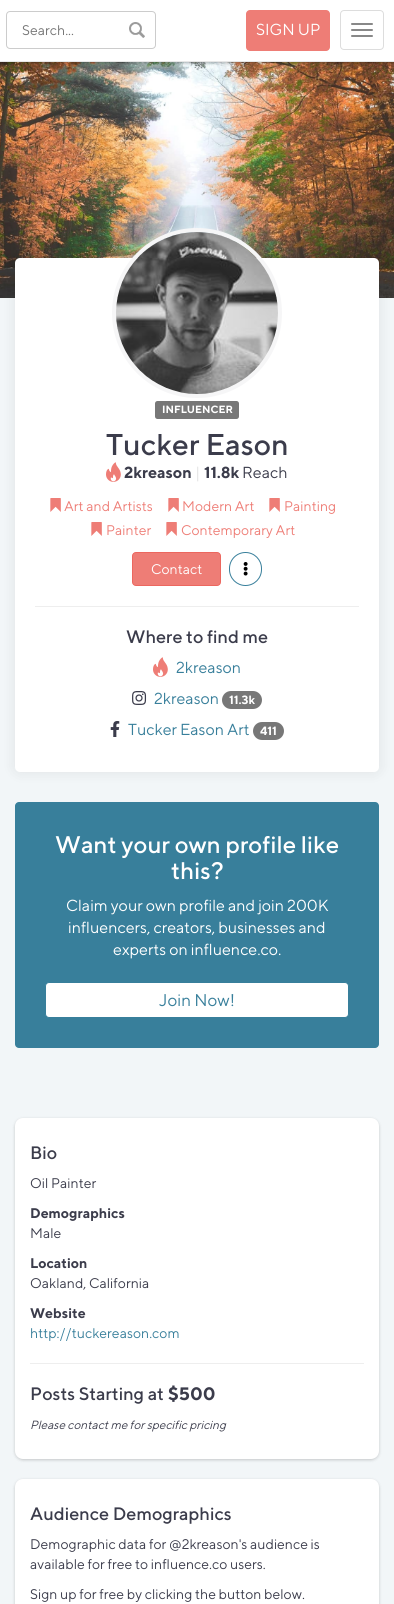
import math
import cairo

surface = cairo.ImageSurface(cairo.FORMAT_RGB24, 394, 1604)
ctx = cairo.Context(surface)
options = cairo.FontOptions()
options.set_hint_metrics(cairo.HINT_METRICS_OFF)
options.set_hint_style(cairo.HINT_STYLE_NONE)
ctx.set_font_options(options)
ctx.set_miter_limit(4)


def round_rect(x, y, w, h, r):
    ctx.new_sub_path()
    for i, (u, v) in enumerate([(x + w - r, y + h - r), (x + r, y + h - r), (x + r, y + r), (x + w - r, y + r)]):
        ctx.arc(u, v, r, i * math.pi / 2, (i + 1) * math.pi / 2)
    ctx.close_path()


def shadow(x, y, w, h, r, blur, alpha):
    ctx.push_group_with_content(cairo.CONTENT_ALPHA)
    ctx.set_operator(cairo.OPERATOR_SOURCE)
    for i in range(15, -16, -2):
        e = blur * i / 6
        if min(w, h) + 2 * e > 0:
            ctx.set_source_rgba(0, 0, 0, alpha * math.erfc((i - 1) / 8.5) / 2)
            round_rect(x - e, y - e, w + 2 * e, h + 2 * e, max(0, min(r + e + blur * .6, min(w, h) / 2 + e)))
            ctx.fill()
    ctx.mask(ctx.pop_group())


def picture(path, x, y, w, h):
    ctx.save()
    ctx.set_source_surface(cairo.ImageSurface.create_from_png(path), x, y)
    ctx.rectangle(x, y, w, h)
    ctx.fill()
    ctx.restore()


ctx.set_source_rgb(0.949, 0.961, 0.969)
ctx.paint()
picture("img2.png", 0, 62, 394, 236)
ctx.set_source_rgb(0, 0, 0)
shadow(0, 1, 394, 62, 0, 1.5, 0.3)
ctx.set_source_rgb(1, 1, 1)
ctx.rectangle(0, 0, 394, 61)
ctx.fill()
ctx.set_source_rgb(0.906, 0.906, 0.906)
ctx.rectangle(0, 61, 394, 1)
ctx.fill()
picture("img1.png", 129, 22, 16, 16)
round_rect(6.5, 11.5, 149, 37, 3.5)
ctx.set_source_rgb(0.8, 0.8, 0.8)
ctx.set_line_width(1)
ctx.stroke()
ctx.select_font_face("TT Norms")
ctx.set_font_size(14)
ctx.set_source_rgb(0.459, 0.459, 0.459)
ctx.move_to(22, 35)
ctx.show_text("Search...")
ctx.set_source_rgb(0.933, 0.49, 0.463)
round_rect(246, 10, 84, 41, 4)
ctx.fill()
ctx.set_font_size(16)
ctx.set_source_rgb(1, 1, 1)
ctx.move_to(256, 35)
ctx.show_text("SIGN UP")
round_rect(340.5, 10.5, 43, 39, 3.5)
ctx.set_source_rgb(0.867, 0.867, 0.867)
ctx.stroke()
ctx.set_source_rgb(0.533, 0.533, 0.533)
round_rect(351, 23, 22, 2, 1)
ctx.fill()
round_rect(351, 29, 22, 2, 1)
ctx.fill()
round_rect(351, 35, 22, 2, 1)
ctx.fill()
ctx.set_source_rgb(0, 0, 0)
shadow(15, 258, 364, 514, 5, 7.5, 0.08)
ctx.set_source_rgb(1, 1, 1)
round_rect(15, 258, 364, 514, 5)
ctx.fill()
ctx.arc(197, 313, 83, 0, 2 * math.pi)
ctx.set_source_rgb(0.961, 0.961, 0.965)
ctx.set_line_width(4)
ctx.stroke()
picture("img3.png", 116, 232, 162, 162)
ctx.set_source_rgb(0.467, 0.467, 0.467)
round_rect(155, 401, 84, 18, 2.5)
ctx.fill()
ctx.select_font_face("TT Norms", cairo.FONT_SLANT_NORMAL, cairo.FONT_WEIGHT_BOLD)
ctx.set_font_size(10.5)
ctx.set_source_rgb(1, 1, 1)
ctx.move_to(162, 413)
ctx.show_text("INFLUENCER")
ctx.select_font_face("TT Norms Medium")
ctx.set_font_size(30)
ctx.set_source_rgb(0.231, 0.235, 0.294)
ctx.move_to(106, 455)
ctx.show_text("Tucker Eason")
picture("img4.png", 106, 462, 15, 20)
ctx.select_font_face("TT Norms", cairo.FONT_SLANT_NORMAL, cairo.FONT_WEIGHT_BOLD)
ctx.set_font_size(16)
ctx.move_to(124, 478)
ctx.show_text("2kreason")
ctx.select_font_face("TT Norms")
ctx.set_source_rgb(0.894, 0.894, 0.894)
ctx.move_to(195, 478)
ctx.show_text("|")
ctx.select_font_face("TT Norms", cairo.FONT_SLANT_NORMAL, cairo.FONT_WEIGHT_BOLD)
ctx.set_source_rgb(0.231, 0.235, 0.294)
ctx.move_to(204, 478)
ctx.show_text("11.8k")
ctx.select_font_face("TT Norms")
ctx.move_to(242, 478)
ctx.show_text("Reach")
picture("img5.png", 50, 498, 11, 14)
ctx.set_font_size(14)
ctx.set_source_rgb(0.933, 0.49, 0.463)
ctx.move_to(64, 511)
ctx.show_text("Art and Artists")
picture("img5.png", 168, 498, 11, 14)
ctx.move_to(182, 511)
ctx.show_text("Modern Art")
picture("img5.png", 269, 498, 11, 14)
ctx.move_to(284, 511)
ctx.show_text("Painting")
picture("img5.png", 91, 522, 11, 14)
ctx.move_to(106, 535)
ctx.show_text("Painter")
picture("img5.png", 166, 522, 11, 14)
ctx.move_to(181, 535)
ctx.show_text("Contemporary Art")
round_rect(132.5, 552.5, 88, 33, 3.5)
ctx.fill_preserve()
ctx.set_source_rgb(0.922, 0.404, 0.373)
ctx.set_line_width(1)
ctx.stroke()
ctx.set_source_rgb(1, 1, 1)
ctx.move_to(151, 574)
ctx.show_text("Contact")
round_rect(229.5, 552.5, 32, 33, 16)
ctx.set_source_rgb(0.22, 0.498, 0.608)
ctx.stroke()
picture("img6.png", 243, 562, 5, 14)
ctx.set_source_rgb(0.933, 0.933, 0.933)
ctx.rectangle(35, 606, 324, 1)
ctx.fill()
ctx.select_font_face("TT Norms Medium")
ctx.set_font_size(18)
ctx.set_source_rgb(0.231, 0.235, 0.294)
ctx.move_to(126, 643)
ctx.show_text("Where to find me")
picture("img4.png", 153, 657, 15, 20)
ctx.select_font_face("TT Norms")
ctx.set_font_size(16)
ctx.set_source_rgb(0.22, 0.498, 0.608)
ctx.move_to(176, 673)
ctx.show_text("2kreason")
picture("img7.png", 132, 691, 15, 14)
ctx.move_to(154, 704)
ctx.show_text("2kreason")
ctx.set_source_rgb(0.467, 0.467, 0.467)
round_rect(222, 691, 40, 18, 9)
ctx.fill()
ctx.select_font_face("TT Norms", cairo.FONT_SLANT_NORMAL, cairo.FONT_WEIGHT_BOLD)
ctx.set_font_size(12)
ctx.set_source_rgb(1, 1, 1)
ctx.move_to(229, 704)
ctx.show_text("11.3k")
picture("img8.png", 110, 721, 10, 16)
ctx.select_font_face("TT Norms")
ctx.set_font_size(16)
ctx.set_source_rgb(0.22, 0.498, 0.608)
ctx.move_to(128, 735)
ctx.show_text("Tucker Eason Art")
ctx.set_source_rgb(0.467, 0.467, 0.467)
round_rect(253, 722, 31, 18, 9)
ctx.fill()
ctx.select_font_face("TT Norms", cairo.FONT_SLANT_NORMAL, cairo.FONT_WEIGHT_BOLD)
ctx.set_font_size(12)
ctx.set_source_rgb(1, 1, 1)
ctx.move_to(260, 735)
ctx.show_text("411")
ctx.set_source_rgb(0.22, 0.498, 0.608)
round_rect(15, 802, 364, 246, 4)
ctx.fill()
ctx.select_font_face("TT Norms Medium")
ctx.set_font_size(24)
ctx.set_source_rgb(1, 1, 1)
ctx.move_to(55, 853)
ctx.show_text("Want your own profile like")
ctx.move_to(171, 879)
ctx.show_text("this?")
ctx.select_font_face("TT Norms")
ctx.set_font_size(16)
ctx.move_to(66, 911)
ctx.show_text("Claim your own profile and join 200K")
ctx.move_to(68, 933)
ctx.show_text("influencers, creators, businesses and")
ctx.move_to(113, 955)
ctx.show_text("experts on influence.co.")
round_rect(45.5, 982.5, 303, 35, 3.5)
ctx.fill_preserve()
ctx.set_source_rgb(0.22, 0.498, 0.608)
ctx.stroke()
ctx.set_font_size(17)
ctx.move_to(159, 1006)
ctx.show_text("Join Now!")
ctx.set_source_rgb(0, 0, 0)
shadow(15, 1119, 364, 341, 8, 1.5, 0.2)
ctx.set_source_rgb(1, 1, 1)
round_rect(15, 1118, 364, 341, 8)
ctx.fill()
ctx.select_font_face("TT Norms Medium")
ctx.set_font_size(18)
ctx.set_source_rgb(0.231, 0.235, 0.294)
ctx.move_to(30, 1159)
ctx.show_text("Bio")
ctx.select_font_face("TT Norms")
ctx.set_font_size(14)
ctx.move_to(30, 1188)
ctx.show_text("Oil Painter")
ctx.select_font_face("TT Norms", cairo.FONT_SLANT_NORMAL, cairo.FONT_WEIGHT_BOLD)
ctx.move_to(30, 1218)
ctx.show_text("Demographics")
ctx.select_font_face("TT Norms")
ctx.move_to(30, 1238)
ctx.show_text("Male")
ctx.select_font_face("TT Norms", cairo.FONT_SLANT_NORMAL, cairo.FONT_WEIGHT_BOLD)
ctx.move_to(30, 1268)
ctx.show_text("Location")
ctx.select_font_face("TT Norms")
ctx.move_to(30, 1288)
ctx.show_text("Oakland, California")
ctx.select_font_face("TT Norms", cairo.FONT_SLANT_NORMAL, cairo.FONT_WEIGHT_BOLD)
ctx.move_to(30, 1318)
ctx.show_text("Website")
ctx.select_font_face("TT Norms")
ctx.set_source_rgb(0.22, 0.498, 0.608)
ctx.move_to(30, 1338)
ctx.show_text("http://tuckereason.com")
ctx.set_source_rgb(0.933, 0.933, 0.933)
ctx.rectangle(30, 1363, 334, 1)
ctx.fill()
ctx.select_font_face("TT Norms Medium")
ctx.set_font_size(18)
ctx.set_source_rgb(0.231, 0.235, 0.294)
ctx.move_to(30, 1400)
ctx.show_text("Posts Starting at")
ctx.select_font_face("TT Norms", cairo.FONT_SLANT_NORMAL, cairo.FONT_WEIGHT_BOLD)
ctx.move_to(168, 1400)
ctx.show_text("$500")
ctx.select_font_face("TT Norms", cairo.FONT_SLANT_ITALIC)
ctx.set_font_size(11.9)
ctx.move_to(30, 1429)
ctx.show_text("Please contact me for specific pricing")
ctx.set_source_rgb(0, 0, 0)
shadow(15, 1480, 364, 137, 8, 1.5, 0.2)
ctx.set_source_rgb(1, 1, 1)
round_rect(15, 1479, 364, 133, 8)
ctx.fill()
ctx.select_font_face("TT Norms Medium")
ctx.set_font_size(18)
ctx.set_source_rgb(0.231, 0.235, 0.294)
ctx.move_to(30, 1520)
ctx.show_text("Audience Demographics")
ctx.select_font_face("TT Norms")
ctx.set_font_size(14)
ctx.move_to(30, 1549)
ctx.show_text("Demographic data for @2kreason's audience is")
ctx.move_to(30, 1569)
ctx.show_text("available for free to influence.co users.")
ctx.move_to(30, 1599)
ctx.show_text("Sign up for free by clicking the button below.")
surface.write_to_png("page.png")
